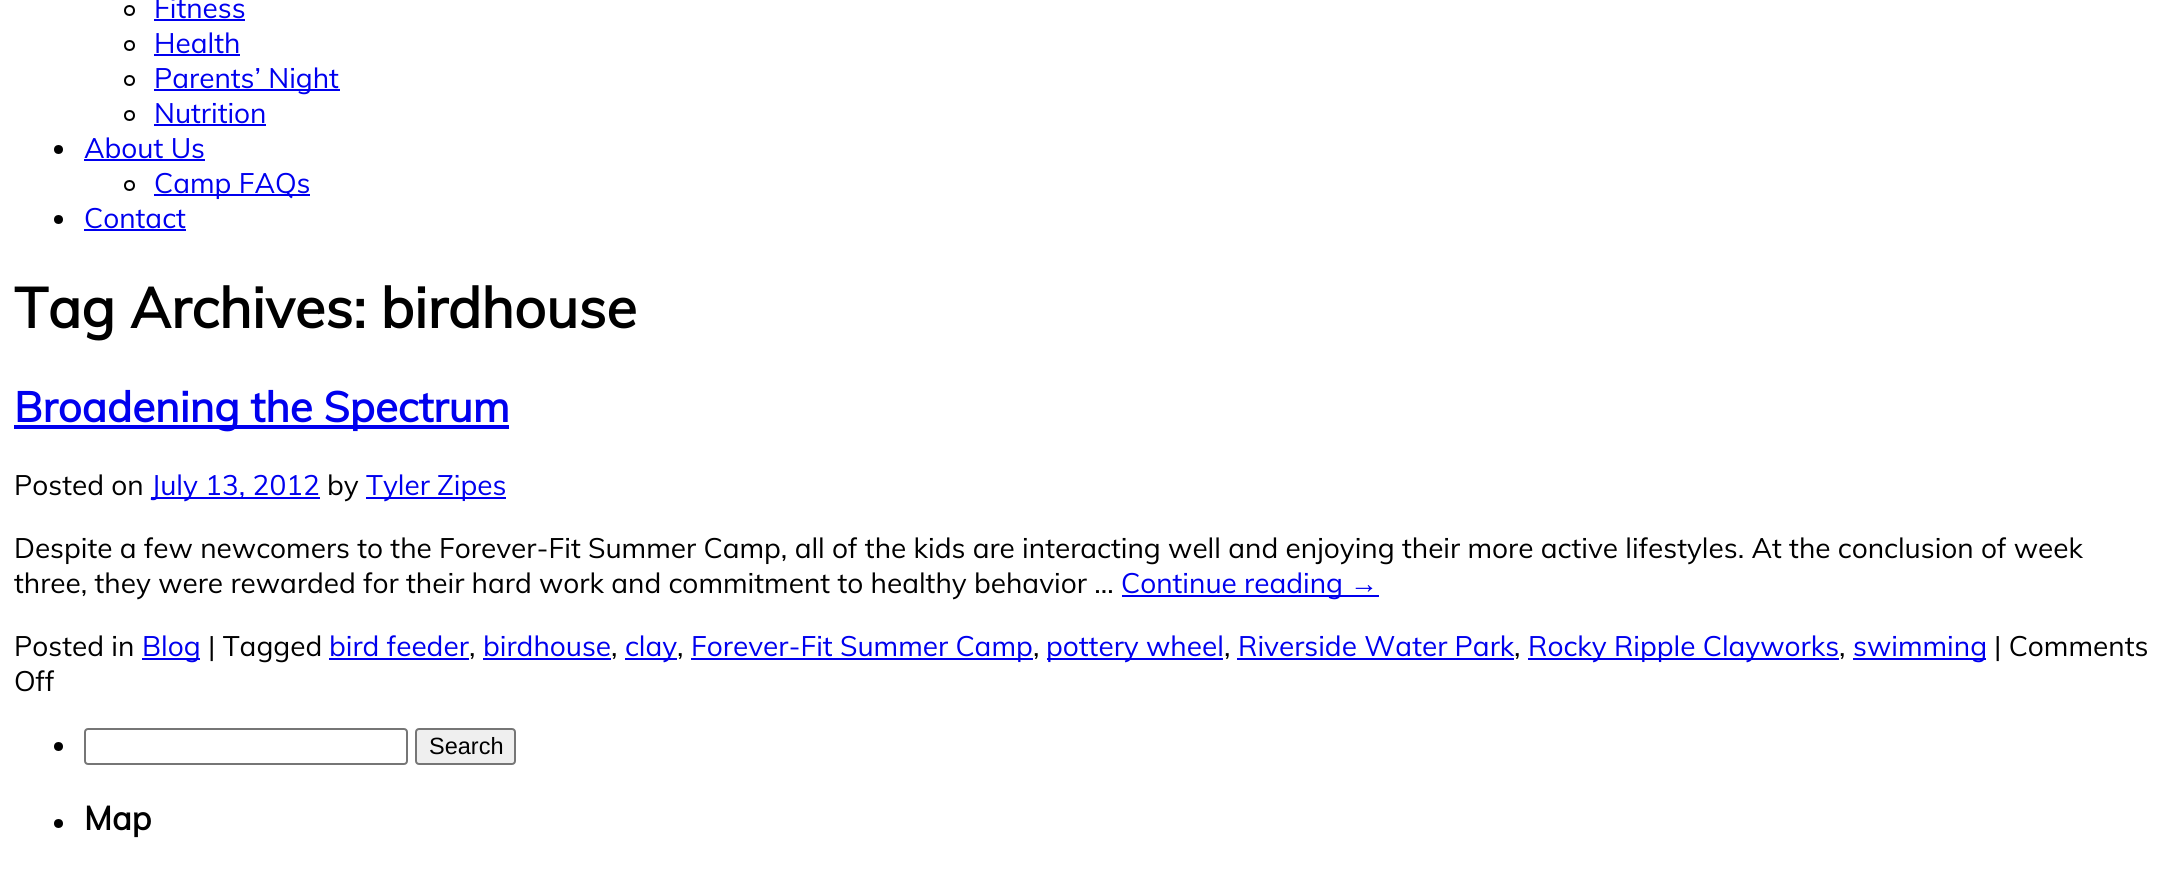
import math
import cairo

surface = cairo.ImageSurface(cairo.FORMAT_RGB24, 2164, 887)
ctx = cairo.Context(surface)
options = cairo.FontOptions()
options.set_hint_metrics(cairo.HINT_METRICS_OFF)
options.set_hint_style(cairo.HINT_STYLE_NONE)
ctx.set_font_options(options)
ctx.set_miter_limit(4)


def round_rect(x, y, w, h, r):
    ctx.new_sub_path()
    for i, (u, v) in enumerate([(x + w - r, y + h - r), (x + r, y + h - r), (x + r, y + r), (x + w - r, y + r)]):
        ctx.arc(u, v, r, i * math.pi / 2, (i + 1) * math.pi / 2)
    ctx.close_path()


ctx.set_source_rgb(1, 1, 1)
ctx.paint()
ctx.arc(129.5, 10.5, 4.5, 0, 2 * math.pi)
ctx.set_source_rgb(0, 0, 0)
ctx.stroke()
ctx.select_font_face("Muli")
ctx.set_font_size(28)
ctx.set_source_rgb(0, 0, 0.933)
ctx.move_to(154, 18)
ctx.show_text("Fitness")
ctx.rectangle(154, 19, 91, 2)
ctx.fill()
ctx.arc(129.5, 45.5, 4.5, 0, 2 * math.pi)
ctx.set_source_rgb(0, 0, 0)
ctx.stroke()
ctx.set_source_rgb(0, 0, 0.933)
ctx.move_to(154, 53)
ctx.show_text("Health")
ctx.rectangle(154, 54, 86, 2)
ctx.fill()
ctx.arc(129.5, 80.5, 4.5, 0, 2 * math.pi)
ctx.set_source_rgb(0, 0, 0)
ctx.stroke()
ctx.set_source_rgb(0, 0, 0.933)
ctx.rectangle(154, 89, 186, 2)
ctx.fill()
ctx.move_to(154, 88)
ctx.show_text("Parents’ Night")
ctx.new_path()
ctx.arc(129.5, 115.5, 4.5, 0, 2 * math.pi)
ctx.set_source_rgb(0, 0, 0)
ctx.stroke()
ctx.set_source_rgb(0, 0, 0.933)
ctx.move_to(154, 123)
ctx.show_text("Nutrition")
ctx.rectangle(154, 124, 112, 2)
ctx.fill()
ctx.set_source_rgb(0, 0, 0)
ctx.arc(58.5, 149.5, 4.5, 0, 2 * math.pi)
ctx.fill()
ctx.set_source_rgb(0, 0, 0.933)
ctx.move_to(84, 158)
ctx.show_text("About Us")
ctx.rectangle(84, 159, 121, 2)
ctx.fill()
ctx.arc(129.5, 185.5, 4.5, 0, 2 * math.pi)
ctx.set_source_rgb(0, 0, 0)
ctx.stroke()
ctx.set_source_rgb(0, 0, 0.933)
ctx.rectangle(154, 194, 156, 2)
ctx.fill()
ctx.move_to(154, 193)
ctx.show_text("Camp FAQs")
ctx.set_source_rgb(0, 0, 0)
ctx.new_path()
ctx.arc(58.5, 219.5, 4.5, 0, 2 * math.pi)
ctx.fill()
ctx.set_source_rgb(0, 0, 0.933)
ctx.move_to(84, 228)
ctx.show_text("Contact")
ctx.rectangle(84, 229, 102, 2)
ctx.fill()
ctx.select_font_face("Muli", cairo.FONT_SLANT_NORMAL, cairo.FONT_WEIGHT_BOLD)
ctx.set_font_size(56)
ctx.set_source_rgb(0, 0, 0)
ctx.move_to(14, 328)
ctx.show_text("Tag Archives: birdhouse")
ctx.set_source_rgb(0, 0, 0.933)
ctx.rectangle(14, 425, 495, 4)
ctx.fill()
ctx.set_font_size(42)
ctx.move_to(14, 422)
ctx.show_text("Broadening the Spectrum")
ctx.select_font_face("Muli")
ctx.set_font_size(28)
ctx.set_source_rgb(0, 0, 0)
ctx.move_to(14, 495)
ctx.show_text("Posted on")
ctx.set_source_rgb(0, 0, 0.933)
ctx.rectangle(151, 497, 169, 2)
ctx.fill()
ctx.move_to(151, 495)
ctx.show_text("July 13, 2012")
ctx.set_source_rgb(0, 0, 0)
ctx.move_to(327, 495)
ctx.show_text("by")
ctx.set_source_rgb(0, 0, 0.933)
ctx.rectangle(366, 497, 140, 2)
ctx.fill()
ctx.move_to(366, 495)
ctx.show_text("Tyler Zipes")
ctx.set_source_rgb(0, 0, 0)
ctx.move_to(14, 558)
ctx.show_text("Despite a few newcomers to the Forever-Fit Summer Camp, all of the kids are interacting well and enjoying their more active lifestyles. At the conclusion of week")
ctx.move_to(14, 593)
ctx.show_text("three, they were rewarded for their hard work and commitment to healthy behavior …")
ctx.set_source_rgb(0, 0, 0.933)
ctx.rectangle(1122, 595, 257, 2)
ctx.fill()
ctx.move_to(1121, 593)
ctx.show_text("Continue reading")
ctx.select_font_face("Liberation Sans")
ctx.move_to(1350, 593)
ctx.show_text("→")
ctx.select_font_face("Muli")
ctx.set_source_rgb(0, 0, 0)
ctx.move_to(14, 656)
ctx.show_text("Posted in")
ctx.set_source_rgb(0, 0, 0.933)
ctx.rectangle(142, 658, 58, 2)
ctx.fill()
ctx.move_to(142, 656)
ctx.show_text("Blog")
ctx.set_source_rgb(0, 0, 0)
ctx.move_to(208, 656)
ctx.show_text("| Tagged")
ctx.set_source_rgb(0, 0, 0.933)
ctx.move_to(329, 656)
ctx.show_text("bird feeder")
ctx.set_source_rgb(0, 0, 0)
ctx.move_to(469, 656)
ctx.show_text(",")
ctx.set_source_rgb(0, 0, 0.933)
ctx.rectangle(329, 658, 140, 2)
ctx.fill()
ctx.move_to(483, 656)
ctx.show_text("birdhouse")
ctx.set_source_rgb(0, 0, 0)
ctx.move_to(611, 656)
ctx.show_text(",")
ctx.set_source_rgb(0, 0, 0.933)
ctx.rectangle(483, 658, 128, 2)
ctx.fill()
ctx.rectangle(625, 658, 52, 2)
ctx.fill()
ctx.move_to(625, 656)
ctx.show_text("clay")
ctx.set_source_rgb(0, 0, 0)
ctx.move_to(677, 656)
ctx.show_text(",")
ctx.set_source_rgb(0, 0, 0.933)
ctx.rectangle(691, 658, 342, 2)
ctx.fill()
ctx.move_to(691, 656)
ctx.show_text("Forever-Fit Summer Camp")
ctx.set_source_rgb(0, 0, 0)
ctx.move_to(1033, 656)
ctx.show_text(",")
ctx.set_source_rgb(0, 0, 0.933)
ctx.rectangle(1047, 658, 176, 2)
ctx.fill()
ctx.move_to(1046, 656)
ctx.show_text("pottery wheel")
ctx.set_source_rgb(0, 0, 0)
ctx.move_to(1224, 656)
ctx.show_text(",")
ctx.set_source_rgb(0, 0, 0.933)
ctx.move_to(1238, 656)
ctx.show_text("Riverside Water Park")
ctx.set_source_rgb(0, 0, 0)
ctx.move_to(1514, 656)
ctx.show_text(",")
ctx.set_source_rgb(0, 0, 0.933)
ctx.rectangle(1237, 658, 277, 2)
ctx.fill()
ctx.rectangle(1528, 658, 311, 2)
ctx.fill()
ctx.move_to(1528, 656)
ctx.show_text("Rocky Ripple Clayworks")
ctx.set_source_rgb(0, 0, 0)
ctx.move_to(1839, 656)
ctx.show_text(",")
ctx.set_source_rgb(0, 0, 0.933)
ctx.rectangle(1853, 658, 133, 2)
ctx.fill()
ctx.move_to(1853, 656)
ctx.show_text("swimming")
ctx.set_source_rgb(0, 0, 0)
ctx.move_to(1994, 656)
ctx.show_text("| Comments")
ctx.move_to(14, 691)
ctx.show_text("Off")
ctx.new_path()
ctx.arc(58.5, 746.5, 4.5, 0, 2 * math.pi)
ctx.fill()
round_rect(85, 729, 322, 35, 3)
ctx.set_source_rgb(0.463, 0.463, 0.463)
ctx.stroke()
ctx.set_source_rgb(0.937, 0.937, 0.937)
round_rect(416, 729, 99, 35, 3)
ctx.fill_preserve()
ctx.set_source_rgb(0.463, 0.463, 0.463)
ctx.stroke()
ctx.select_font_face("Liberation Sans")
ctx.set_font_size(23.5)
ctx.set_source_rgb(0, 0, 0)
ctx.move_to(429, 754)
ctx.show_text("Search")
ctx.new_path()
ctx.arc(58.5, 823.5, 4.5, 0, 2 * math.pi)
ctx.fill()
ctx.select_font_face("Muli", cairo.FONT_SLANT_NORMAL, cairo.FONT_WEIGHT_BOLD)
ctx.set_font_size(33)
ctx.move_to(84, 830)
ctx.show_text("Map")
surface.write_to_png("page.png")
